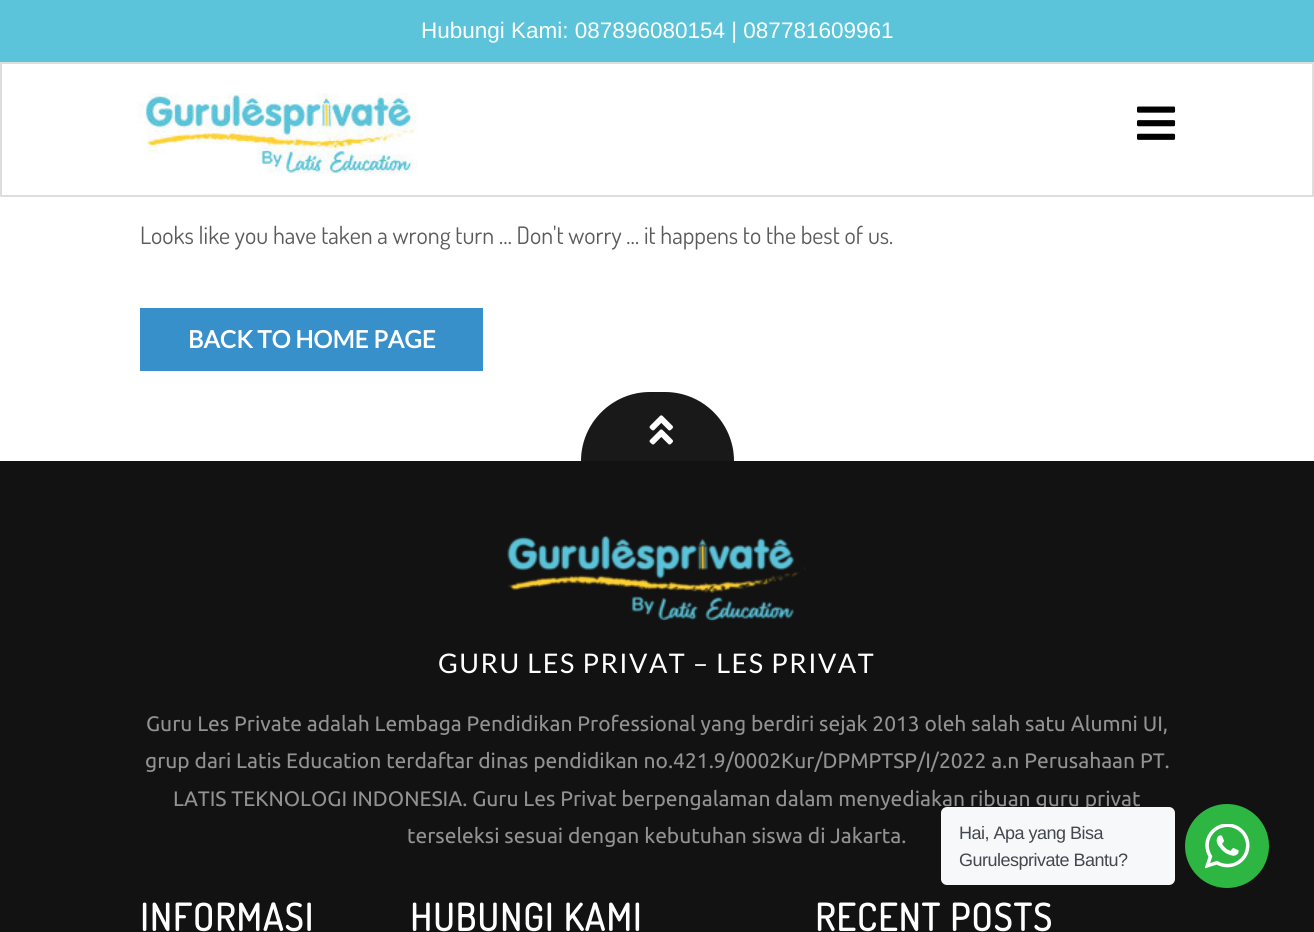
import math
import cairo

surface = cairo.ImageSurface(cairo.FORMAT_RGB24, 1314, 932)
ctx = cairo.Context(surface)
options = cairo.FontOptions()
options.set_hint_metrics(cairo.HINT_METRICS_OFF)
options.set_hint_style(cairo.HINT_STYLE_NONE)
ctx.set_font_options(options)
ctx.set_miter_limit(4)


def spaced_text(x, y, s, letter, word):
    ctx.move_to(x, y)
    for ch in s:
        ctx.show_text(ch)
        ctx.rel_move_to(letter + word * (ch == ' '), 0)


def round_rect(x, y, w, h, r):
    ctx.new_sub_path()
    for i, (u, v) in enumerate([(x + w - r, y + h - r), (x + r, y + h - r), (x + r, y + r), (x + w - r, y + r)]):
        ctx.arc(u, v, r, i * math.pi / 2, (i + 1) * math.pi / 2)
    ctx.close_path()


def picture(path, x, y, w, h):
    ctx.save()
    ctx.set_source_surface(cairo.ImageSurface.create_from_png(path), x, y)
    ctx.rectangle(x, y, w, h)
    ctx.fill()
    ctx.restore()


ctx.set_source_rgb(1, 1, 1)
ctx.paint()
ctx.set_source_rgb(0.357, 0.769, 0.855)
ctx.rectangle(0, 0, 1314, 62)
ctx.fill()
ctx.select_font_face("Liberation Sans")
ctx.set_font_size(22.5)
ctx.set_source_rgb(1, 1, 1)
ctx.move_to(421, 38)
ctx.show_text("Hubungi Kami: 087896080154 | 087781609961")
ctx.rectangle(1, 63, 1312, 133)
ctx.set_source_rgb(0.867, 0.867, 0.867)
ctx.stroke()
picture("img1.png", 137, 93, 281, 81)
picture("img2.png", 1137, 106, 39, 34)
ctx.select_font_face("Dosis")
ctx.set_font_size(24)
ctx.set_source_rgb(0.357, 0.357, 0.357)
ctx.move_to(140, 244)
ctx.show_text("Looks like you have taken a wrong turn … Don't worry … it happens to the best of us.")
ctx.set_source_rgb(0.22, 0.565, 0.796)
ctx.rectangle(140, 308, 343, 63)
ctx.fill()
ctx.select_font_face("Lato", cairo.FONT_SLANT_NORMAL, cairo.FONT_WEIGHT_BOLD)
ctx.set_source_rgb(1, 1, 1)
ctx.move_to(188, 348)
ctx.show_text("BACK TO HOME PAGE")
ctx.set_source_rgb(0.098, 0.098, 0.098)
ctx.new_path()
ctx.move_to(650, 392)
ctx.line_to(665, 392)
ctx.curve_to(703, 392, 734, 423, 734, 461)
ctx.line_to(581, 461)
ctx.curve_to(581, 423, 612, 392, 650, 392)
ctx.close_path()
ctx.fill()
picture("img3.png", 649, 415, 24, 30)
ctx.set_source_rgb(0.078, 0.071, 0.071)
ctx.rectangle(0, 461, 1314, 471)
ctx.fill()
picture("img4.png", 507, 535, 299, 87)
ctx.select_font_face("Lato")
ctx.set_font_size(27)
ctx.set_source_rgb(1, 1, 1)
spaced_text(438, 673, "GURU LES PRIVAT – LES PRIVAT", 1.5, 0)
ctx.select_font_face("Ubuntu")
ctx.set_font_size(21)
ctx.set_source_rgb(0.573, 0.573, 0.573)
ctx.move_to(146, 731)
ctx.show_text("Guru Les Private adalah Lembaga Pendidikan Professional yang berdiri sejak 2013 oleh salah satu Alumni UI,")
ctx.move_to(145, 768)
ctx.show_text("grup dari Latis Education terdaftar dinas pendidikan no.421.9/0002Kur/DPMPTSP/I/2022 a.n Perusahaan PT.")
ctx.move_to(173, 806)
ctx.show_text("LATIS TEKNOLOGI INDONESIA. Guru Les Privat berpengalaman dalam menyediakan ribuan guru privat")
ctx.move_to(407, 843)
ctx.show_text("terseleksi sesuai dengan kebutuhan siswa di Jakarta.")
ctx.select_font_face("Dosis", cairo.FONT_SLANT_NORMAL, cairo.FONT_WEIGHT_BOLD)
ctx.set_font_size(37.5)
ctx.set_source_rgb(1, 1, 1)
spaced_text(140, 931, "INFORMASI", 1.5, 0)
spaced_text(410, 931, "HUBUNGI KAMI", 1.5, 0)
spaced_text(815, 931, "RECENT POSTS", 1.5, 0)
ctx.set_source_rgb(0.961, 0.969, 0.976)
round_rect(941, 807, 234, 78, 6)
ctx.fill()
ctx.select_font_face("Liberation Sans")
ctx.set_font_size(18)
ctx.set_source_rgb(0.263, 0.278, 0.306)
spaced_text(959, 839, "Hai, Apa yang Bisa", -0.5, 0)
spaced_text(959, 866, "Gurulesprivate Bantu?", -0.5, 0)
ctx.set_source_rgb(0.176, 0.718, 0.259)
ctx.new_path()
ctx.arc(1227, 846, 42, 0, 2 * math.pi)
ctx.fill()
picture("img5.png", 1205, 824, 45, 45)
surface.write_to_png("page.png")
